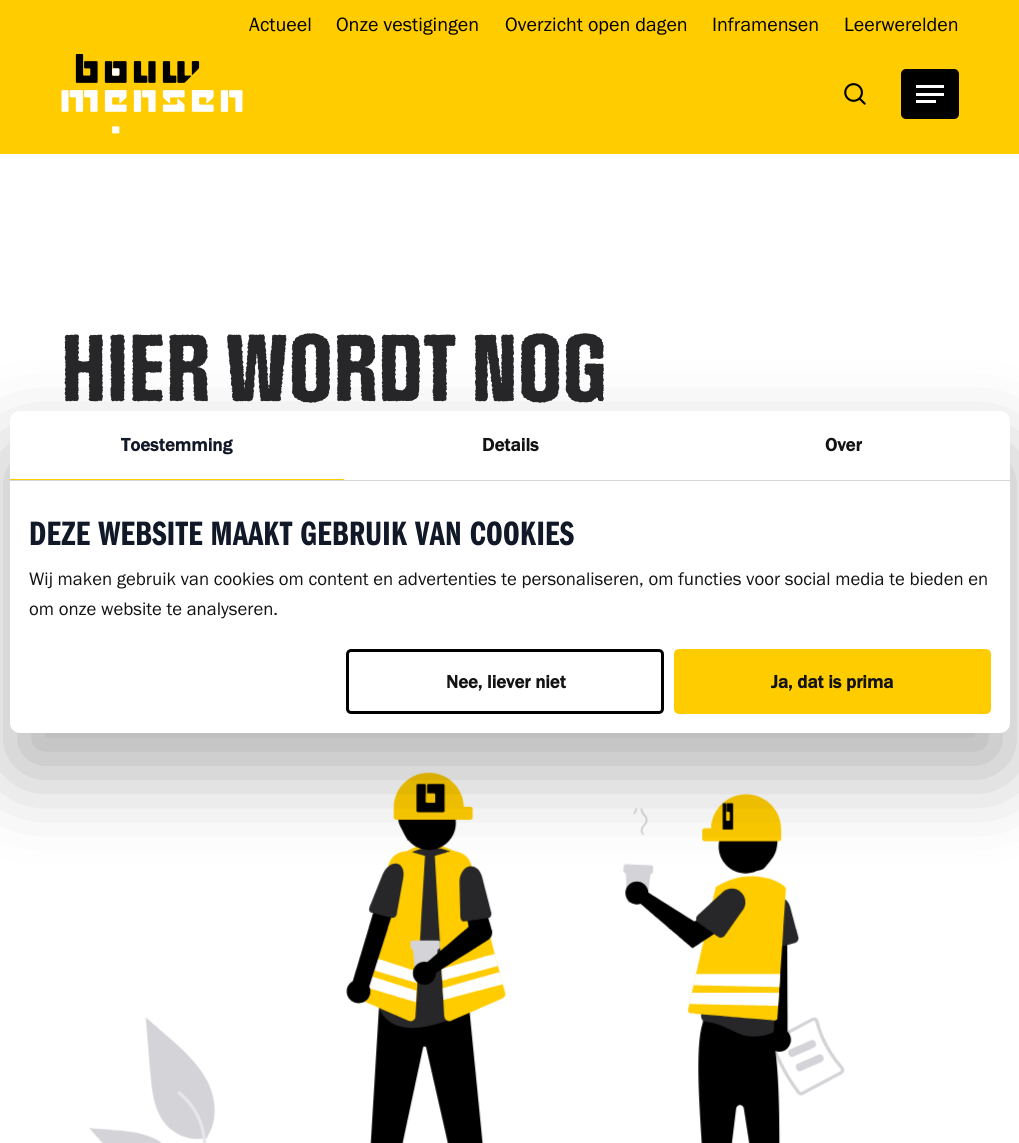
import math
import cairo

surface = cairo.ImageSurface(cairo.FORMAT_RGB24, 1019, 1143)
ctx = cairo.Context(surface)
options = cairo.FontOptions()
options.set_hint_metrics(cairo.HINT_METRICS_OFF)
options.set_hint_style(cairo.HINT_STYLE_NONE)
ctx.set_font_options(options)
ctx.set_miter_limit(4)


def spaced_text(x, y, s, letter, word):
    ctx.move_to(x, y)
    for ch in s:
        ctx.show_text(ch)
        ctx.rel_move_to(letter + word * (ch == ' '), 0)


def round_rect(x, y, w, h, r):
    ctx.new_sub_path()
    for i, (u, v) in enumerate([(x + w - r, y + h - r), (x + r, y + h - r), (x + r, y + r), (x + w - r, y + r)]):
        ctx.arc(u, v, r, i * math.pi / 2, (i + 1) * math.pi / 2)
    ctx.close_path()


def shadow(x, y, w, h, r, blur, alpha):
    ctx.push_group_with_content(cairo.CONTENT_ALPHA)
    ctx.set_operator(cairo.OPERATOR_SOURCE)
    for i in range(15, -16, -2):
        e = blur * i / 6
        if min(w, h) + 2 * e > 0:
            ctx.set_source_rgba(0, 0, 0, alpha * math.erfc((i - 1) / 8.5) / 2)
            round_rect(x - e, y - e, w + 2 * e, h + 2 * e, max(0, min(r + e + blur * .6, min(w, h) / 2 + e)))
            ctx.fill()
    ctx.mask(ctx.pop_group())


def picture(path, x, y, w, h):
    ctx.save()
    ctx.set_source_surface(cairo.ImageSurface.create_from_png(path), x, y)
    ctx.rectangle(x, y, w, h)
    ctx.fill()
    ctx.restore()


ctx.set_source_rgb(1, 1, 1)
ctx.paint()
ctx.set_source_rgb(1, 0.8, 0)
ctx.rectangle(0, 0, 1019, 154)
ctx.fill()
ctx.select_font_face("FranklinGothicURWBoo")
ctx.set_font_size(20)
ctx.set_source_rgb(0, 0, 0)
ctx.move_to(249, 31)
ctx.show_text("Actueel")
ctx.move_to(336, 31)
ctx.show_text("Onze vestigingen")
ctx.move_to(505, 31)
ctx.show_text("Overzicht open dagen")
ctx.move_to(712, 31)
ctx.show_text("Inframensen")
ctx.move_to(844, 31)
ctx.show_text("Leerwerelden")
picture("img1.png", 61, 54, 182, 80)
picture("img2.png", 844, 83, 22, 22)
round_rect(901, 69, 58, 50, 5)
ctx.fill()
ctx.set_source_rgb(1, 1, 1)
ctx.rectangle(916, 85, 28, 3)
ctx.fill()
ctx.rectangle(916, 100, 20, 3)
ctx.fill()
ctx.rectangle(916, 93, 28, 3)
ctx.fill()
ctx.select_font_face("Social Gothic", cairo.FONT_SLANT_NORMAL, cairo.FONT_WEIGHT_BOLD)
ctx.set_font_size(80)
ctx.set_source_rgb(0.153, 0.153, 0.165)
ctx.move_to(61, 401)
ctx.show_text("HIER WORDT NOG")
picture("img3.png", 89, 772, 756, 371)
ctx.set_source_rgb(0, 0, 0)
shadow(10, 451, 1000, 322, 10, 42.5, 0.3)
ctx.set_source_rgb(1, 1, 1)
round_rect(10, 411, 1000, 322, 10)
ctx.fill()
ctx.set_source_rgb(0.839, 0.839, 0.839)
ctx.rectangle(10, 480, 1000, 1)
ctx.fill()
ctx.set_source_rgb(1, 0.8, 0)
ctx.rectangle(10, 479, 334, 1)
ctx.fill()
ctx.select_font_face("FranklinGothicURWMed", cairo.FONT_SLANT_NORMAL, cairo.FONT_WEIGHT_BOLD)
ctx.set_font_size(18.75)
ctx.set_source_rgb(0.067, 0.094, 0.153)
spaced_text(121, 451, "Toestemming", 0.1, 0)
ctx.set_source_rgb(0.078, 0.078, 0.078)
spaced_text(482, 451, "Details", 0.1, 0)
spaced_text(825, 451, "Over", 0.1, 0)
ctx.select_font_face("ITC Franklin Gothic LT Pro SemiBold")
ctx.set_font_size(35)
ctx.set_source_rgb(0.067, 0.094, 0.153)
spaced_text(29, 545, "DEZE WEBSITE MAAKT GEBRUIK VAN COOKIES", 0.3, 0)
ctx.select_font_face("FranklinGothicURWBoo")
ctx.set_font_size(18.75)
ctx.set_source_rgb(0.078, 0.078, 0.078)
ctx.move_to(29, 585)
ctx.show_text("Wij maken gebruik van cookies om content en advertenties te personaliseren, om functies voor social media te bieden en")
ctx.move_to(29, 615)
ctx.show_text("om onze website te analyseren.")
round_rect(347.5, 650.5, 315, 62, 3.5)
ctx.set_source_rgb(0, 0, 0)
ctx.set_line_width(3)
ctx.stroke()
ctx.select_font_face("FranklinGothicURWMed", cairo.FONT_SLANT_NORMAL, cairo.FONT_WEIGHT_BOLD)
ctx.set_source_rgb(0.078, 0.078, 0.078)
ctx.move_to(446, 688)
ctx.show_text("Nee, liever niet")
ctx.set_source_rgb(1, 0.8, 0)
round_rect(675.5, 650.5, 314, 62, 3.5)
ctx.fill_preserve()
ctx.stroke()
ctx.set_source_rgb(0.078, 0.078, 0.078)
ctx.move_to(771, 688)
ctx.show_text("Ja, dat is prima")
surface.write_to_png("page.png")
